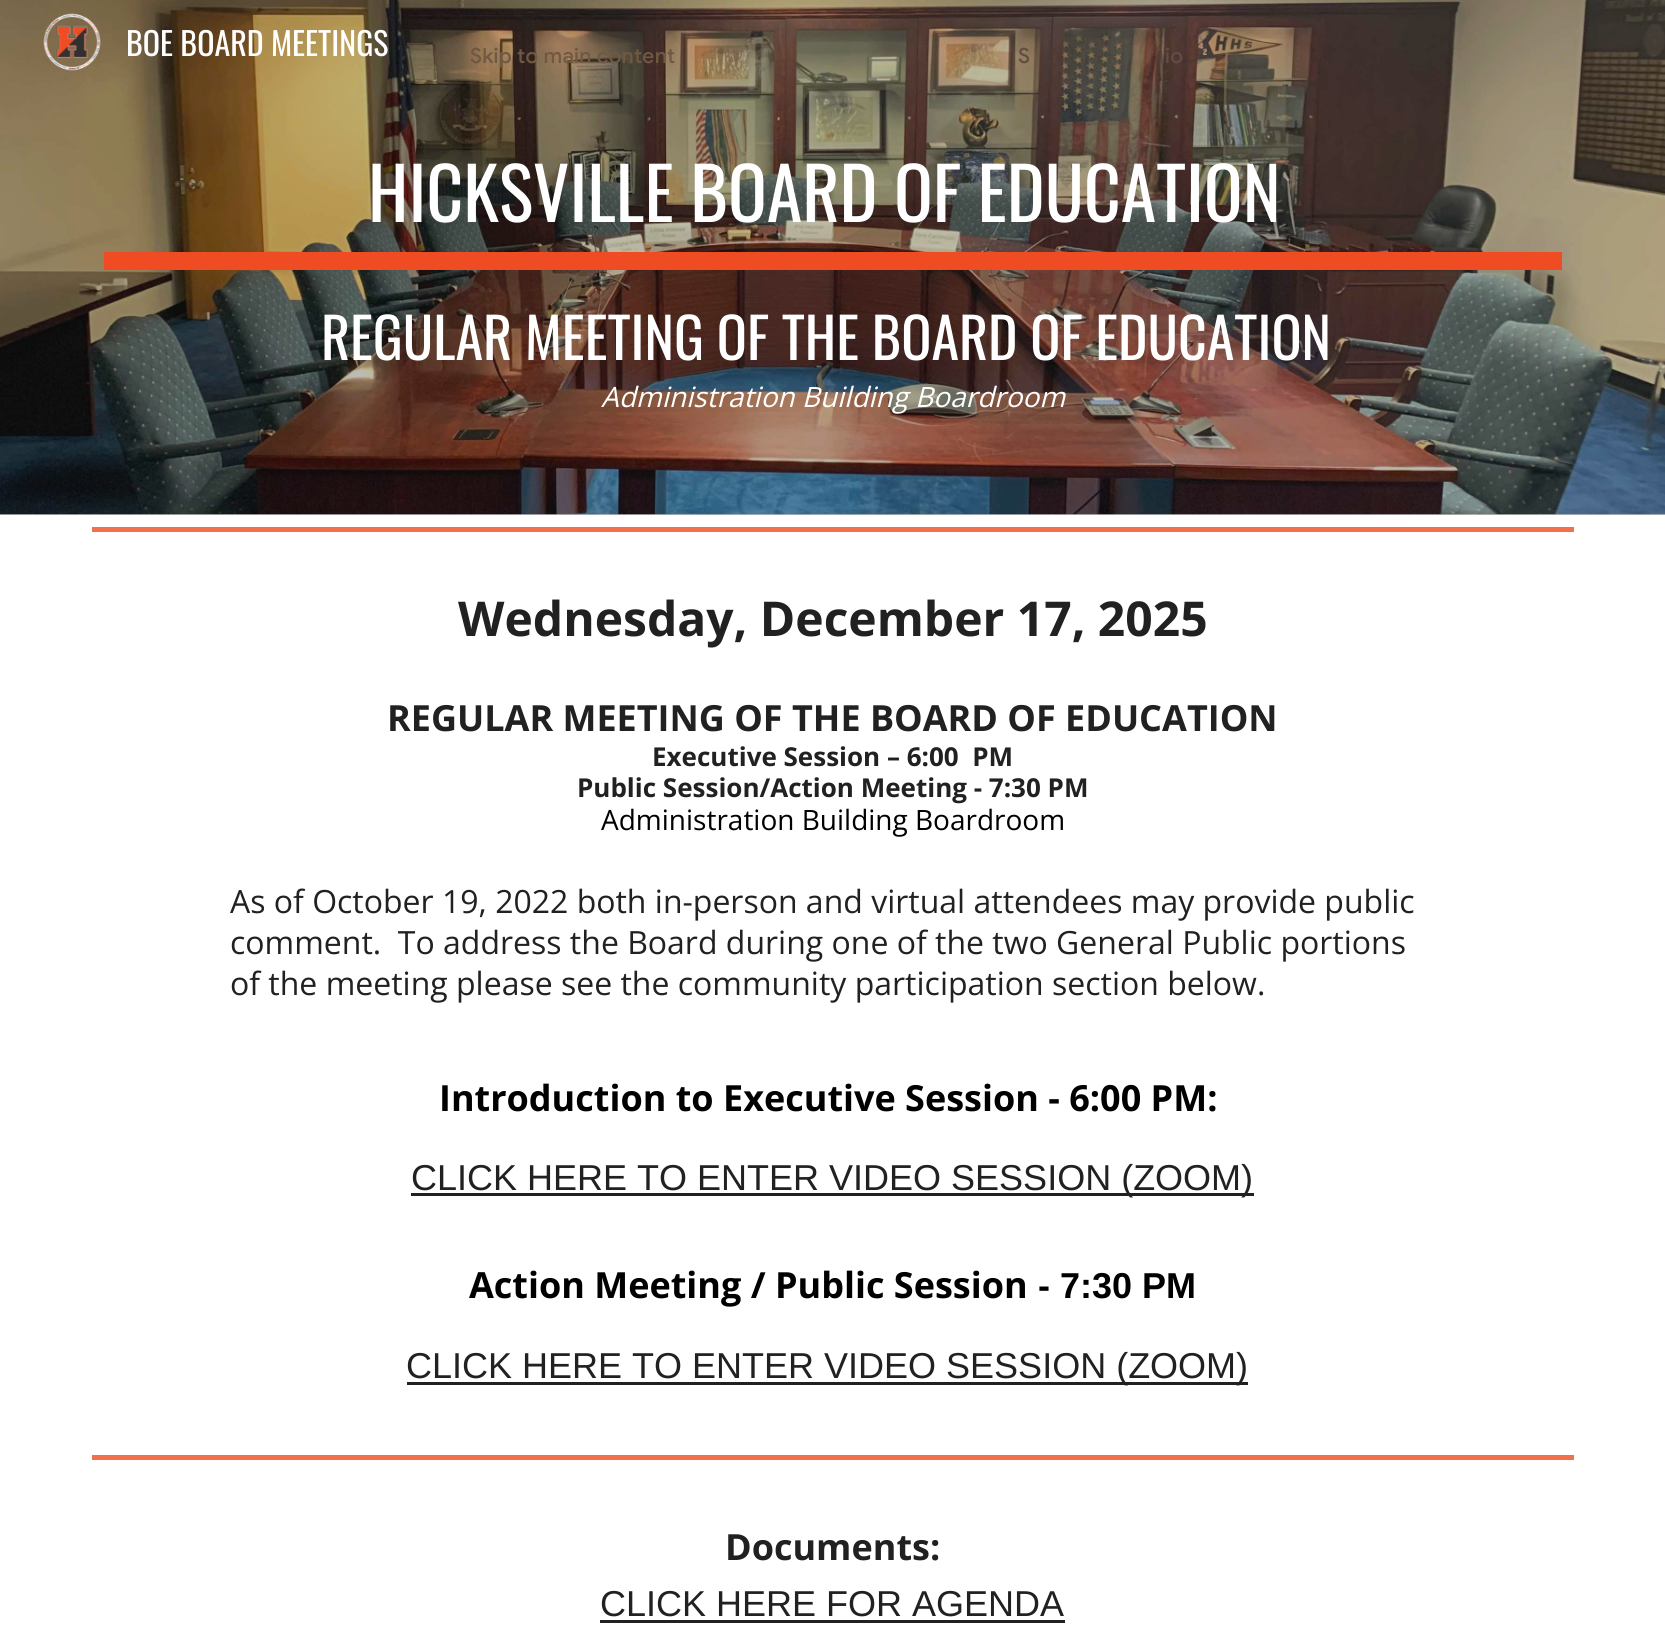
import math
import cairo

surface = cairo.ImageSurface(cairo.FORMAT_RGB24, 1665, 1641)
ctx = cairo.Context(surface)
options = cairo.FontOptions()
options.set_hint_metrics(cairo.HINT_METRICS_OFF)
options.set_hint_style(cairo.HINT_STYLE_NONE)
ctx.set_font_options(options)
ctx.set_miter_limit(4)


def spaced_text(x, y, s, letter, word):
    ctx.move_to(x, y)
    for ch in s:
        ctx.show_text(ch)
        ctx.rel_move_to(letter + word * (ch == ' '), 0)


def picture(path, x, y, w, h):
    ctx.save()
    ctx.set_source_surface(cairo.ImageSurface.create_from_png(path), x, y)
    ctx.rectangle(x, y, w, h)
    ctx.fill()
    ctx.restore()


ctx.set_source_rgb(1, 1, 1)
ctx.paint()
ctx.set_source_rgb(0.737, 0.737, 0.737)
ctx.rectangle(0, 514, 1665, 1)
ctx.fill()
picture("img2.png", 0, 0, 1665, 515)
picture("img1.png", 43, 13, 58, 58)
ctx.select_font_face("Oswald")
ctx.set_font_size(32)
ctx.set_source_rgb(1, 1, 1)
ctx.move_to(126, 56)
ctx.show_text("BOE BOARD MEETINGS")
ctx.set_font_size(72)
ctx.move_to(368, 222)
ctx.show_text("HICKSVILLE BOARD OF EDUCATION")
ctx.set_source_rgb(0.941, 0.298, 0.137)
ctx.rectangle(104, 252, 1458, 18)
ctx.fill()
ctx.set_font_size(56)
ctx.set_source_rgb(1, 1, 1)
ctx.move_to(321, 360)
ctx.show_text("REGULAR MEETING OF THE BOARD OF EDUCATION")
ctx.select_font_face("Open Sans", cairo.FONT_SLANT_ITALIC)
ctx.set_font_size(28)
ctx.move_to(601, 407)
ctx.show_text("Administration Building Boardroom")
ctx.set_source_rgb(0.953, 0.439, 0.31)
ctx.rectangle(92, 527, 1482, 5)
ctx.fill()
ctx.select_font_face("Open Sans", cairo.FONT_SLANT_NORMAL, cairo.FONT_WEIGHT_BOLD)
ctx.set_font_size(48)
ctx.set_source_rgb(0.129, 0.129, 0.129)
ctx.move_to(458, 636)
ctx.show_text("Wednesday, December 17, 2025")
ctx.set_font_size(36)
ctx.move_to(387, 731)
ctx.show_text("REGULAR MEETING OF THE BOARD OF EDUCATION")
ctx.set_font_size(26)
ctx.move_to(652, 766)
ctx.show_text("Executive Session – 6:00  PM")
ctx.move_to(577, 797)
ctx.show_text("Public Session/Action Meeting - 7:30 PM")
ctx.select_font_face("Open Sans")
ctx.set_font_size(28)
ctx.set_source_rgb(0, 0, 0)
ctx.move_to(601, 830)
ctx.show_text("Administration Building Boardroom")
ctx.set_font_size(32)
ctx.set_source_rgb(0.129, 0.129, 0.129)
ctx.move_to(230, 913)
ctx.show_text("As of October 19, 2022 both in-person and virtual attendees may provide public")
ctx.move_to(230, 954)
ctx.show_text("comment.  To address the Board during one of the two General Public portions")
ctx.move_to(230, 995)
ctx.show_text("of the meeting please see the community participation section below.")
ctx.select_font_face("Open Sans", cairo.FONT_SLANT_NORMAL, cairo.FONT_WEIGHT_BOLD)
ctx.set_font_size(36)
ctx.set_source_rgb(0, 0, 0)
ctx.move_to(439, 1111)
ctx.show_text("Introduction to Executive Session - 6:00 PM:")
ctx.set_source_rgb(0.129, 0.129, 0.129)
ctx.rectangle(411, 1193, 843, 3)
ctx.fill()
ctx.select_font_face("Liberation Sans")
ctx.move_to(411, 1190)
ctx.show_text("CLICK HERE TO ENTER VIDEO SESSION (ZOOM)")
ctx.select_font_face("Open Sans", cairo.FONT_SLANT_NORMAL, cairo.FONT_WEIGHT_BOLD)
ctx.set_source_rgb(0, 0, 0)
ctx.move_to(469, 1298)
ctx.show_text("Action Meeting / Public Session")
ctx.select_font_face("Liberation Sans", cairo.FONT_SLANT_NORMAL, cairo.FONT_WEIGHT_BOLD)
ctx.move_to(1038, 1298)
ctx.show_text("- 7:30 PM")
ctx.set_source_rgb(0.129, 0.129, 0.129)
ctx.rectangle(407, 1382, 841, 3)
ctx.fill()
ctx.select_font_face("Liberation Sans")
ctx.move_to(406, 1378)
ctx.show_text("CLICK HERE TO ENTER VIDEO SESSION (ZOOM)")
ctx.set_source_rgb(0.953, 0.439, 0.31)
ctx.rectangle(92, 1455, 1482, 5)
ctx.fill()
ctx.select_font_face("Open Sans", cairo.FONT_SLANT_NORMAL, cairo.FONT_WEIGHT_BOLD)
ctx.set_source_rgb(0.129, 0.129, 0.129)
ctx.move_to(725, 1560)
ctx.show_text("Documents:")
ctx.select_font_face("Liberation Sans")
ctx.move_to(600, 1616)
ctx.show_text("CLICK HERE FOR AGENDA")
ctx.rectangle(600, 1620, 465, 3)
ctx.fill()
ctx.select_font_face("Google Sans Medium")
ctx.set_font_size(21)
ctx.set_source_rgb(0.439, 0.349, 0.259)
spaced_text(470, 63, "Skip to main content", 0.25, 0)
ctx.set_source_rgb(0.376, 0.306, 0.255)
spaced_text(1018, 63, "S", 0.25, 0)
spaced_text(1165, 63, "io", 0.25, 0)
surface.write_to_png("page.png")
